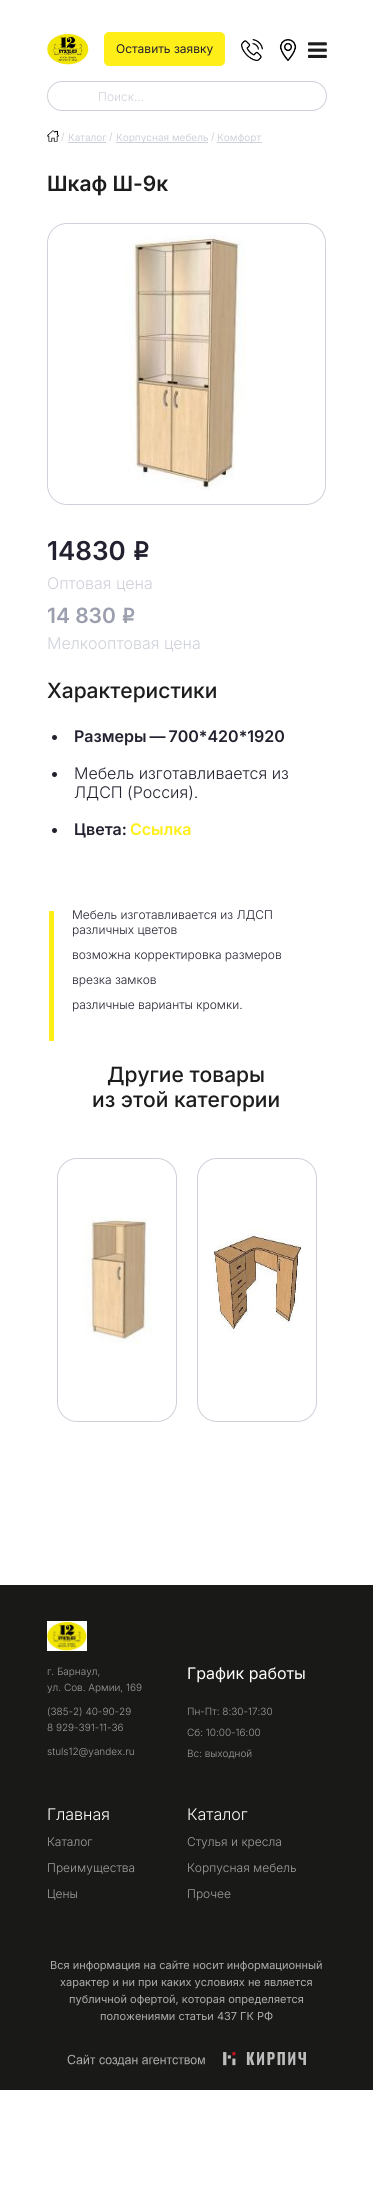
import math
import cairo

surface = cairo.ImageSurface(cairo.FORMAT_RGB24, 373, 2186)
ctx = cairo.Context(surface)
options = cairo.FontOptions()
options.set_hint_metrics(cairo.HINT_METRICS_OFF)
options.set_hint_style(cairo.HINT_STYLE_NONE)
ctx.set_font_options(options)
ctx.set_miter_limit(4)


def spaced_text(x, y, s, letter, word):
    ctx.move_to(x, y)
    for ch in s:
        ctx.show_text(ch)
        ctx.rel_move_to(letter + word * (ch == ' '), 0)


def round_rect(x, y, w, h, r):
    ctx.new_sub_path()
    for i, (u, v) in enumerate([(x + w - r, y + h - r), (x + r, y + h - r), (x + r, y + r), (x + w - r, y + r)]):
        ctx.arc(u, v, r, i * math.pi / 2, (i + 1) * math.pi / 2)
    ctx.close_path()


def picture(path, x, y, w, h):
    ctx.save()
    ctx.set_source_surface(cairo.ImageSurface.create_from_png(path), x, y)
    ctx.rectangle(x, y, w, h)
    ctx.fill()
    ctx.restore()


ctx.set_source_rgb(1, 1, 1)
ctx.paint()
picture("img1.png", 47, 33, 42, 32)
ctx.set_source_rgb(1, 0.933, 0.09)
round_rect(104, 32, 121, 34, 5)
ctx.fill()
ctx.select_font_face("Inter")
ctx.set_font_size(12)
ctx.set_source_rgb(0.137, 0.129, 0.184)
ctx.move_to(116, 53)
ctx.show_text("Оставить заявку")
picture("img2.png", 241, 39, 56, 22)
picture("img3.png", 308, 42, 19, 16)
round_rect(47.5, 81.5, 279, 29, 14.5)
ctx.set_source_rgb(0.812, 0.82, 0.855)
ctx.set_line_width(1)
ctx.stroke()
ctx.select_font_face("Inter Light")
ctx.move_to(98, 101)
ctx.show_text("Поиск...")
picture("img4.png", 47, 130, 12, 12)
ctx.select_font_face("Inter")
ctx.set_font_size(10)
ctx.move_to(61, 140)
ctx.show_text("/")
ctx.move_to(68, 141)
ctx.show_text("Каталог")
ctx.rectangle(68, 142, 38, 1)
ctx.fill()
ctx.move_to(109, 140)
ctx.show_text("/")
ctx.rectangle(116, 142, 92, 1)
ctx.fill()
ctx.move_to(116, 141)
ctx.show_text("Корпусная мебель")
ctx.move_to(211, 140)
ctx.show_text("/")
ctx.rectangle(217, 142, 45, 1)
ctx.fill()
ctx.move_to(217, 141)
ctx.show_text("Комфорт")
ctx.select_font_face("Inter SemiBold")
ctx.set_font_size(21)
ctx.set_source_rgb(0.11, 0.11, 0.11)
ctx.move_to(47, 191)
ctx.show_text("Шкаф Ш-9к")
round_rect(47.5, 223.5, 278, 281, 19.5)
ctx.set_source_rgb(0.812, 0.82, 0.855)
ctx.stroke()
picture("img5.png", 126, 235, 120, 255)
ctx.set_font_size(26)
ctx.set_source_rgb(0.137, 0.129, 0.184)
ctx.move_to(47, 560)
ctx.show_text("14830")
ctx.select_font_face("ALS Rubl", cairo.FONT_SLANT_NORMAL, cairo.FONT_WEIGHT_BOLD)
ctx.move_to(132, 560)
ctx.show_text("i")
ctx.select_font_face("Inter Light")
ctx.set_font_size(16)
ctx.set_source_rgb(0.812, 0.82, 0.855)
ctx.move_to(47, 589)
ctx.show_text("Оптовая цена")
ctx.select_font_face("Inter SemiBold")
ctx.set_font_size(21)
ctx.set_source_rgb(0.608, 0.624, 0.682)
ctx.move_to(47, 623)
ctx.show_text("14 830")
ctx.select_font_face("ALS Rubl", cairo.FONT_SLANT_NORMAL, cairo.FONT_WEIGHT_BOLD)
ctx.move_to(121, 623)
ctx.show_text("i")
ctx.select_font_face("Inter Light")
ctx.set_font_size(16)
ctx.set_source_rgb(0.812, 0.82, 0.855)
ctx.move_to(47, 649)
ctx.show_text("Мелкооптовая цена")
ctx.select_font_face("Inter Medium")
ctx.set_font_size(21)
ctx.set_source_rgb(0.11, 0.11, 0.11)
ctx.move_to(47, 698)
ctx.show_text("Характеристики")
ctx.set_source_rgb(0.137, 0.129, 0.184)
ctx.new_path()
ctx.arc(54.5, 737.5, 2.5, 0, 2 * math.pi)
ctx.fill()
ctx.select_font_face("Inter SemiBold")
ctx.set_font_size(16)
spaced_text(74, 742, "Размеры — 700*420*1920", 0, -1)
ctx.new_path()
ctx.arc(54.5, 774.5, 2.5, 0, 2 * math.pi)
ctx.fill()
ctx.select_font_face("Inter Light")
ctx.move_to(74, 779)
ctx.show_text("Мебель изготавливается из")
ctx.move_to(74, 798)
ctx.show_text("ЛДСП (Россия).")
ctx.new_path()
ctx.arc(54.5, 830.5, 2.5, 0, 2 * math.pi)
ctx.fill()
ctx.select_font_face("Inter SemiBold")
ctx.move_to(74, 835)
ctx.show_text("Цвета:")
ctx.set_source_rgb(1, 0.933, 0.09)
ctx.move_to(130, 835)
ctx.show_text("Ссылка")
ctx.rectangle(49, 911, 5, 130)
ctx.fill()
ctx.select_font_face("Inter Light")
ctx.set_font_size(12)
ctx.set_source_rgb(0.137, 0.129, 0.184)
ctx.move_to(72, 919)
ctx.show_text("Мебель изготавливается из ЛДСП")
ctx.move_to(72, 934)
ctx.show_text("различных цветов")
ctx.move_to(72, 959)
ctx.show_text("возможна корректировка размеров")
ctx.move_to(72, 984)
ctx.show_text("врезка замков")
ctx.move_to(72, 1009)
ctx.show_text("различные варианты кромки.")
ctx.select_font_face("Inter Medium")
ctx.set_font_size(21)
ctx.set_source_rgb(0.11, 0.11, 0.11)
ctx.move_to(107, 1082)
ctx.show_text("Другие товары")
ctx.move_to(92, 1107)
ctx.show_text("из этой категории")
round_rect(57.5, 1158.5, 119, 263, 19.5)
ctx.set_source_rgb(0.812, 0.82, 0.855)
ctx.stroke()
picture("img6.png", 84, 1217, 68, 128)
round_rect(197.5, 1158.5, 119, 263, 19.5)
ctx.stroke()
picture("img7.png", 213, 1229, 89, 104)
ctx.set_source_rgb(0.098, 0.098, 0.09)
ctx.rectangle(0, 1585, 373, 505)
ctx.fill()
picture("img8.png", 47, 1621, 40, 30)
ctx.select_font_face("Inter Light")
ctx.set_font_size(10)
ctx.set_source_rgb(0.624, 0.624, 0.624)
ctx.move_to(47, 1675)
ctx.show_text("г. Барнаул,")
ctx.move_to(47, 1691)
ctx.show_text("ул. Сов. Армии, 169")
ctx.move_to(47, 1715)
ctx.show_text("(385-2) 40-90-29")
ctx.move_to(47, 1731)
ctx.show_text("8 929-391-11-36")
ctx.move_to(47, 1755)
ctx.show_text("stuls12@yandex.ru")
ctx.select_font_face("Inter")
ctx.set_font_size(16)
ctx.set_source_rgb(1, 1, 1)
ctx.move_to(187, 1679)
ctx.show_text("График работы")
ctx.select_font_face("Inter Light")
ctx.set_font_size(10)
ctx.set_source_rgb(0.624, 0.624, 0.624)
ctx.move_to(187, 1715)
ctx.show_text("Пн-Пт: 8:30-17:30")
ctx.move_to(187, 1736)
ctx.show_text("Сб: 10:00-16:00")
ctx.move_to(187, 1757)
ctx.show_text("Вс: выходной")
ctx.set_font_size(16)
ctx.set_source_rgb(1, 1, 1)
ctx.move_to(47, 1820)
ctx.show_text("Главная")
ctx.set_font_size(12)
ctx.set_source_rgb(0.624, 0.624, 0.624)
ctx.move_to(47, 1846)
ctx.show_text("Каталог")
ctx.move_to(47, 1872)
ctx.show_text("Преимущества")
ctx.move_to(47, 1898)
ctx.show_text("Цены")
ctx.set_font_size(16)
ctx.set_source_rgb(1, 1, 1)
ctx.move_to(187, 1820)
ctx.show_text("Каталог")
ctx.set_font_size(12)
ctx.set_source_rgb(0.624, 0.624, 0.624)
ctx.move_to(187, 1846)
ctx.show_text("Стулья и кресла")
ctx.move_to(187, 1872)
ctx.show_text("Корпусная мебель")
ctx.move_to(187, 1898)
ctx.show_text("Прочее")
ctx.select_font_face("Inter")
ctx.set_font_size(11)
ctx.set_source_rgb(0.678, 0.678, 0.678)
ctx.move_to(50, 1969)
ctx.show_text("Вся информация на сайте носит информационный")
ctx.move_to(60, 1986)
ctx.show_text("характер и ни при каких условиях не является")
ctx.move_to(69, 2003)
ctx.show_text("публичной офертой, которая определяется")
ctx.move_to(100, 2020)
ctx.show_text("положениями статьи 437 ГК РФ")
picture("img9.png", 67, 2052, 239, 14)
surface.write_to_png("page.png")
